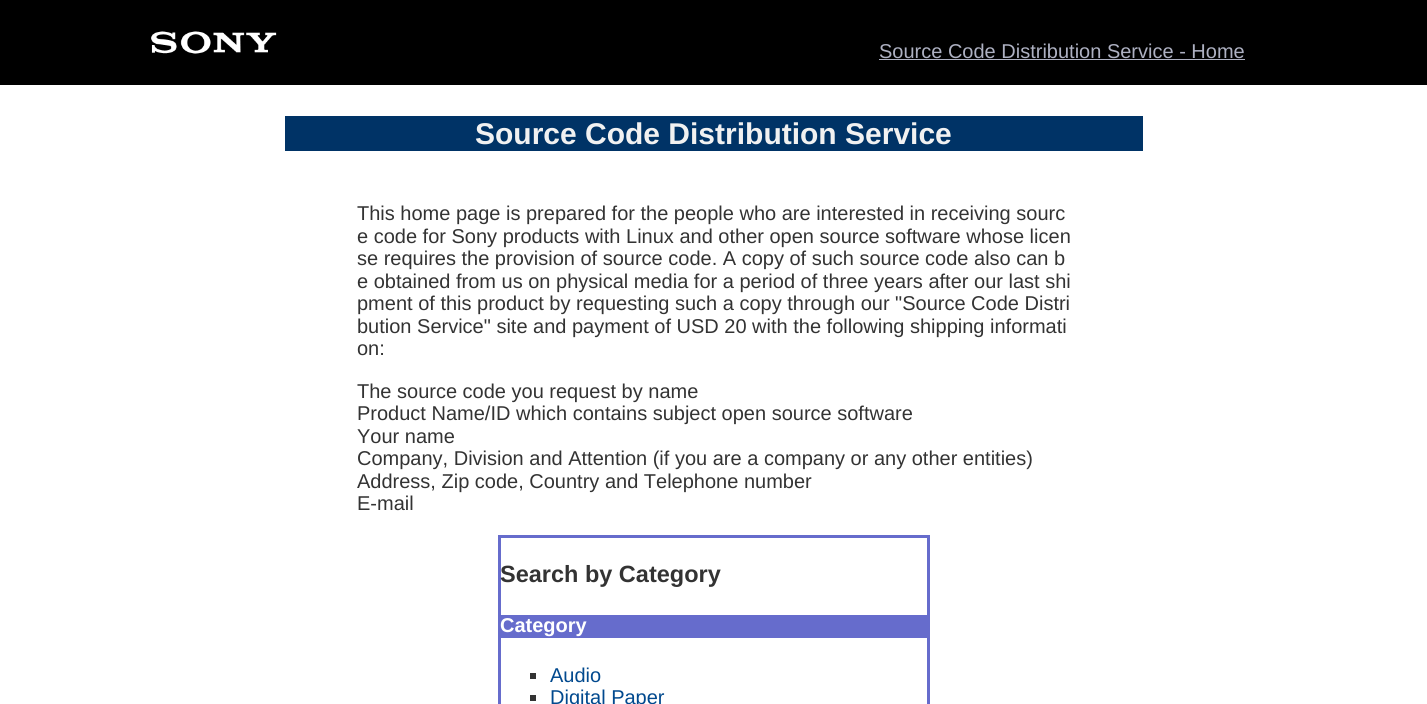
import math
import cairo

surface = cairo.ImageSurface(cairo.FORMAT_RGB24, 1427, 704)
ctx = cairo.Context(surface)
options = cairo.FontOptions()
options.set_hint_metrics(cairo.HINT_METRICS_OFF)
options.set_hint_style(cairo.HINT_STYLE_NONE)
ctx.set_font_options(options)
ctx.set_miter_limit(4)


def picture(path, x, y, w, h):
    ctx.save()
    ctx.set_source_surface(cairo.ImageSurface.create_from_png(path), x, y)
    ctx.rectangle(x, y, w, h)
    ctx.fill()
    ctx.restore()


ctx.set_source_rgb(1, 1, 1)
ctx.paint()
ctx.set_source_rgb(0, 0, 0)
ctx.rectangle(0, 0, 1427, 85)
ctx.fill()
picture("img1.png", 151, 31, 126, 23)
ctx.select_font_face("Liberation Sans")
ctx.set_font_size(20)
ctx.set_source_rgb(0.682, 0.694, 0.761)
ctx.move_to(879, 58)
ctx.show_text("Source Code Distribution Service - Home")
ctx.rectangle(879, 59, 366, 1)
ctx.fill()
ctx.set_source_rgb(0, 0.2, 0.4)
ctx.rectangle(285, 116, 858, 35)
ctx.fill()
ctx.select_font_face("Liberation Sans", cairo.FONT_SLANT_NORMAL, cairo.FONT_WEIGHT_BOLD)
ctx.set_font_size(30)
ctx.set_source_rgb(0.945, 0.945, 0.945)
ctx.move_to(475, 144)
ctx.show_text("Source Code Distribution Service")
ctx.select_font_face("Liberation Sans")
ctx.set_font_size(20)
ctx.set_source_rgb(0.2, 0.2, 0.2)
ctx.move_to(357, 220)
ctx.show_text("This home page is prepared for the people who are interested in receiving sourc")
ctx.move_to(357, 243)
ctx.show_text("e code for Sony products with Linux and other open source software whose licen")
ctx.move_to(357, 265)
ctx.show_text("se requires the provision of source code. A copy of such source code also can b")
ctx.move_to(357, 288)
ctx.show_text("e obtained from us on physical media for a period of three years after our last shi")
ctx.move_to(357, 310)
ctx.show_text("pment of this product by requesting such a copy through our \"Source Code Distri")
ctx.move_to(357, 333)
ctx.show_text("bution Service\" site and payment of USD 20 with the following shipping informati")
ctx.move_to(357, 355)
ctx.show_text("on:")
ctx.move_to(357, 398)
ctx.show_text("The source code you request by name")
ctx.move_to(357, 420)
ctx.show_text("Product Name/ID which contains subject open source software")
ctx.move_to(357, 443)
ctx.show_text("Your name")
ctx.move_to(357, 465)
ctx.show_text("Company, Division and Attention (if you are a company or any other entities)")
ctx.move_to(357, 488)
ctx.show_text("Address, Zip code, Country and Telephone number")
ctx.move_to(357, 510)
ctx.show_text("E-mail")
ctx.rectangle(499.5, 536.5, 429, 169)
ctx.set_source_rgb(0.4, 0.424, 0.8)
ctx.set_line_width(3)
ctx.stroke()
ctx.select_font_face("Liberation Sans", cairo.FONT_SLANT_NORMAL, cairo.FONT_WEIGHT_BOLD)
ctx.set_font_size(23.5)
ctx.set_source_rgb(0.2, 0.2, 0.2)
ctx.move_to(500, 582)
ctx.show_text("Search by Category")
ctx.set_source_rgb(0.4, 0.424, 0.8)
ctx.rectangle(501, 615, 426, 23)
ctx.fill()
ctx.set_font_size(20)
ctx.set_source_rgb(1, 1, 1)
ctx.move_to(500, 632)
ctx.show_text("Category")
ctx.set_source_rgb(0.2, 0.2, 0.2)
ctx.rectangle(530, 673, 6, 6)
ctx.fill()
ctx.select_font_face("Liberation Sans")
ctx.set_source_rgb(0.004, 0.286, 0.557)
ctx.move_to(550, 682)
ctx.show_text("Audio")
ctx.set_source_rgb(0.2, 0.2, 0.2)
ctx.rectangle(530, 695, 6, 6)
ctx.fill()
ctx.set_source_rgb(0.004, 0.286, 0.557)
ctx.move_to(550, 704)
ctx.show_text("Digital Paper")
surface.write_to_png("page.png")
